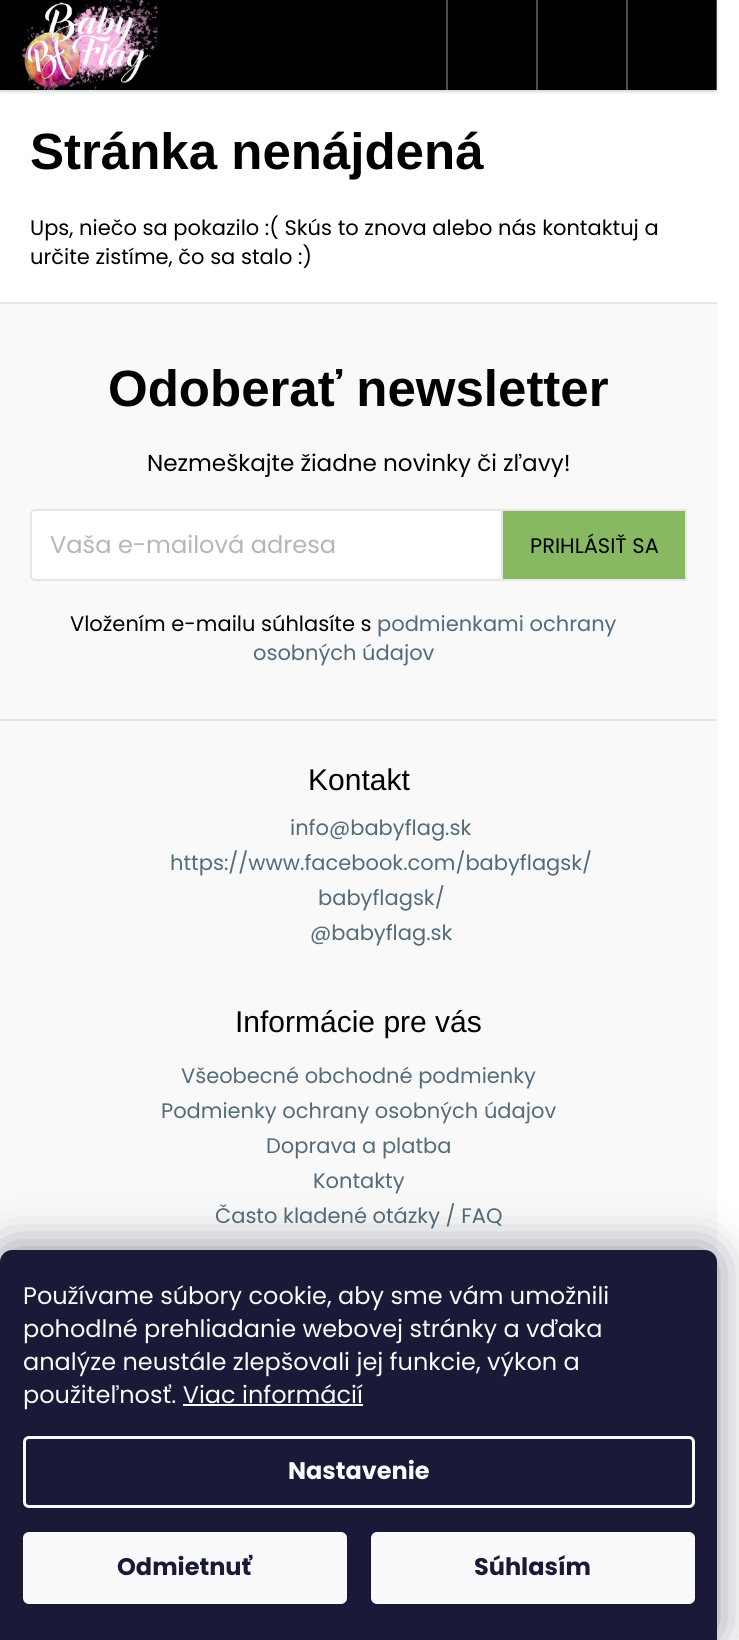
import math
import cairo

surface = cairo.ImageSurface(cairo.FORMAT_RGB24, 739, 1640)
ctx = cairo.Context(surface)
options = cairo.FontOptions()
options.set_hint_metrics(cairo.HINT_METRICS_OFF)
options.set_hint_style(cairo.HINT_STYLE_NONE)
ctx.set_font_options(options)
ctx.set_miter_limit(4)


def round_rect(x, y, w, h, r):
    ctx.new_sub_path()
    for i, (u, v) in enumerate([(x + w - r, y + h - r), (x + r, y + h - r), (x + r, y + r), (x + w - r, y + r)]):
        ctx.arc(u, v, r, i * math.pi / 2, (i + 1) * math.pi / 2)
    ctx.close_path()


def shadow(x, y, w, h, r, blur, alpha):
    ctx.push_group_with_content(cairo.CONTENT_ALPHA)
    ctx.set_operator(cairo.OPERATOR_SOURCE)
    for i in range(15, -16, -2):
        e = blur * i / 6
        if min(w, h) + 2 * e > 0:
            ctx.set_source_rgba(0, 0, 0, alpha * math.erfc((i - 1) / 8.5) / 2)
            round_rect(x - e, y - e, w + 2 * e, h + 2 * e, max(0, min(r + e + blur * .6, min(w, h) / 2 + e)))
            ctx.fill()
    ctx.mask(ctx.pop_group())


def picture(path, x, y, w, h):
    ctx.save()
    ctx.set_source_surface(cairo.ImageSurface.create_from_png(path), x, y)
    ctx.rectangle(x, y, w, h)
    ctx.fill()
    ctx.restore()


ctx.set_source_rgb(1, 1, 1)
ctx.paint()
ctx.set_source_rgb(0, 0, 0)
shadow(0, 2, 717, 90, 0, 1.5, 0.16)
ctx.set_source_rgb(0, 0, 0)
ctx.rectangle(0, 0, 717, 90)
ctx.fill()
picture("img1.png", 21, 0, 137, 90)
ctx.set_source_rgba(1, 1, 1, 0.3)
ctx.rectangle(716, 0, 2, 90)
ctx.fill()
ctx.set_source_rgb(0.302, 0.302, 0.302)
ctx.rectangle(446, 0, 2, 90)
ctx.fill()
ctx.rectangle(536, 0, 2, 90)
ctx.fill()
ctx.rectangle(626, 0, 2, 90)
ctx.fill()
ctx.select_font_face("Liberation Sans", cairo.FONT_SLANT_NORMAL, cairo.FONT_WEIGHT_BOLD)
ctx.set_font_size(51)
ctx.set_source_rgb(0, 0, 0)
ctx.move_to(30, 169)
ctx.show_text("Stránka nenájdená")
ctx.select_font_face("Poppins")
ctx.set_font_size(21)
ctx.move_to(30, 235)
ctx.show_text("Ups, niečo sa pokazilo :( Skús to znova alebo nás kontaktuj a")
ctx.move_to(30, 264)
ctx.show_text("určite zistíme, čo sa stalo :)")
ctx.set_source_rgb(0.976, 0.976, 0.976)
ctx.rectangle(0, 304, 717, 958)
ctx.fill()
ctx.set_source_rgb(0.902, 0.902, 0.902)
ctx.rectangle(0, 302, 717, 2)
ctx.fill()
ctx.rectangle(0, 719, 717, 2)
ctx.fill()
ctx.select_font_face("Liberation Sans", cairo.FONT_SLANT_NORMAL, cairo.FONT_WEIGHT_BOLD)
ctx.set_font_size(51)
ctx.set_source_rgb(0, 0, 0)
ctx.move_to(108, 406)
ctx.show_text("Odoberať newsletter")
ctx.select_font_face("Poppins")
ctx.set_font_size(23.1)
ctx.move_to(147, 471)
ctx.show_text("Nezmeškajte žiadne novinky či zľavy!")
ctx.set_source_rgb(1, 1, 1)
round_rect(31, 510, 655, 70, 4)
ctx.fill_preserve()
ctx.set_source_rgb(0.902, 0.902, 0.902)
ctx.stroke()
ctx.set_font_size(24.1)
ctx.set_source_rgb(0.714, 0.714, 0.714)
ctx.move_to(50, 553)
ctx.show_text("Vaša e-mailová adresa")
ctx.set_source_rgb(0.533, 0.722, 0.38)
ctx.rectangle(502, 510, 184, 70)
ctx.fill_preserve()
ctx.set_source_rgb(0.902, 0.902, 0.902)
ctx.stroke()
ctx.set_font_size(21)
ctx.set_source_rgb(0, 0, 0)
ctx.move_to(530, 553)
ctx.show_text("PRIHLÁSIŤ SA")
ctx.move_to(70, 631)
ctx.show_text("Vložením e-mailu súhlasíte s")
ctx.set_source_rgb(0.329, 0.42, 0.475)
ctx.move_to(377, 631)
ctx.show_text("podmienkami ochrany")
ctx.move_to(253, 660)
ctx.show_text("osobných údajov")
ctx.select_font_face("Liberation Sans")
ctx.set_font_size(30)
ctx.set_source_rgb(0, 0, 0)
ctx.move_to(308, 790)
ctx.show_text("Kontakt")
ctx.select_font_face("Poppins")
ctx.set_font_size(21)
ctx.set_source_rgb(0.329, 0.42, 0.475)
ctx.move_to(290, 835)
ctx.show_text("info@babyflag.sk")
ctx.move_to(170, 870)
ctx.show_text("https://www.facebook.com/babyflagsk/")
ctx.move_to(318, 905)
ctx.show_text("babyflagsk/")
ctx.move_to(310, 940)
ctx.show_text("@babyflag.sk")
ctx.select_font_face("Liberation Sans")
ctx.set_font_size(30)
ctx.set_source_rgb(0, 0, 0)
ctx.move_to(235, 1032)
ctx.show_text("Informácie pre vás")
ctx.select_font_face("Poppins")
ctx.set_font_size(21)
ctx.set_source_rgb(0.329, 0.42, 0.475)
ctx.move_to(181, 1083)
ctx.show_text("Všeobecné obchodné podmienky")
ctx.move_to(161, 1118)
ctx.show_text("Podmienky ochrany osobných údajov")
ctx.move_to(266, 1153)
ctx.show_text("Doprava a platba")
ctx.move_to(313, 1188)
ctx.show_text("Kontakty")
ctx.move_to(215, 1223)
ctx.show_text("Často kladené otázky / FAQ")
ctx.set_source_rgb(0.106, 0.098, 0.224)
shadow(0, 1250, 717, 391, 12, 22.5, 0.5)
ctx.set_source_rgb(0.102, 0.098, 0.216)
ctx.new_path()
ctx.move_to(12, 1250)
ctx.line_to(705, 1250)
ctx.curve_to(711.5, 1250, 717, 1255.5, 717, 1262)
ctx.line_to(717, 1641)
ctx.line_to(0, 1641)
ctx.line_to(0, 1262)
ctx.curve_to(0, 1255.5, 5.5, 1250, 12, 1250)
ctx.close_path()
ctx.fill()
ctx.set_font_size(24)
ctx.set_source_rgb(0.973, 0.98, 0.984)
ctx.move_to(23, 1304)
ctx.show_text("Používame súbory cookie, aby sme vám umožnili")
ctx.move_to(23, 1337)
ctx.show_text("pohodlné prehliadanie webovej stránky a vďaka")
ctx.move_to(23, 1370)
ctx.show_text("analýze neustále zlepšovali jej funkcie, výkon a")
ctx.move_to(23, 1403)
ctx.show_text("použiteľnosť. Viac informácií")
ctx.rectangle(183, 1404, 180, 2)
ctx.fill()
round_rect(24.5, 1437.5, 669, 69, 4.5)
ctx.set_line_width(3)
ctx.stroke()
ctx.select_font_face("Poppins", cairo.FONT_SLANT_NORMAL, cairo.FONT_WEIGHT_BOLD)
ctx.move_to(288, 1479)
ctx.show_text("Nastavenie")
round_rect(23, 1532, 324, 72, 6)
ctx.fill()
ctx.set_source_rgb(0.102, 0.098, 0.216)
ctx.move_to(117, 1575)
ctx.show_text("Odmietnuť")
ctx.set_source_rgb(0.973, 0.98, 0.984)
round_rect(371, 1532, 324, 72, 6)
ctx.fill()
ctx.set_source_rgb(0.102, 0.098, 0.216)
ctx.move_to(474, 1575)
ctx.show_text("Súhlasím")
surface.write_to_png("page.png")
